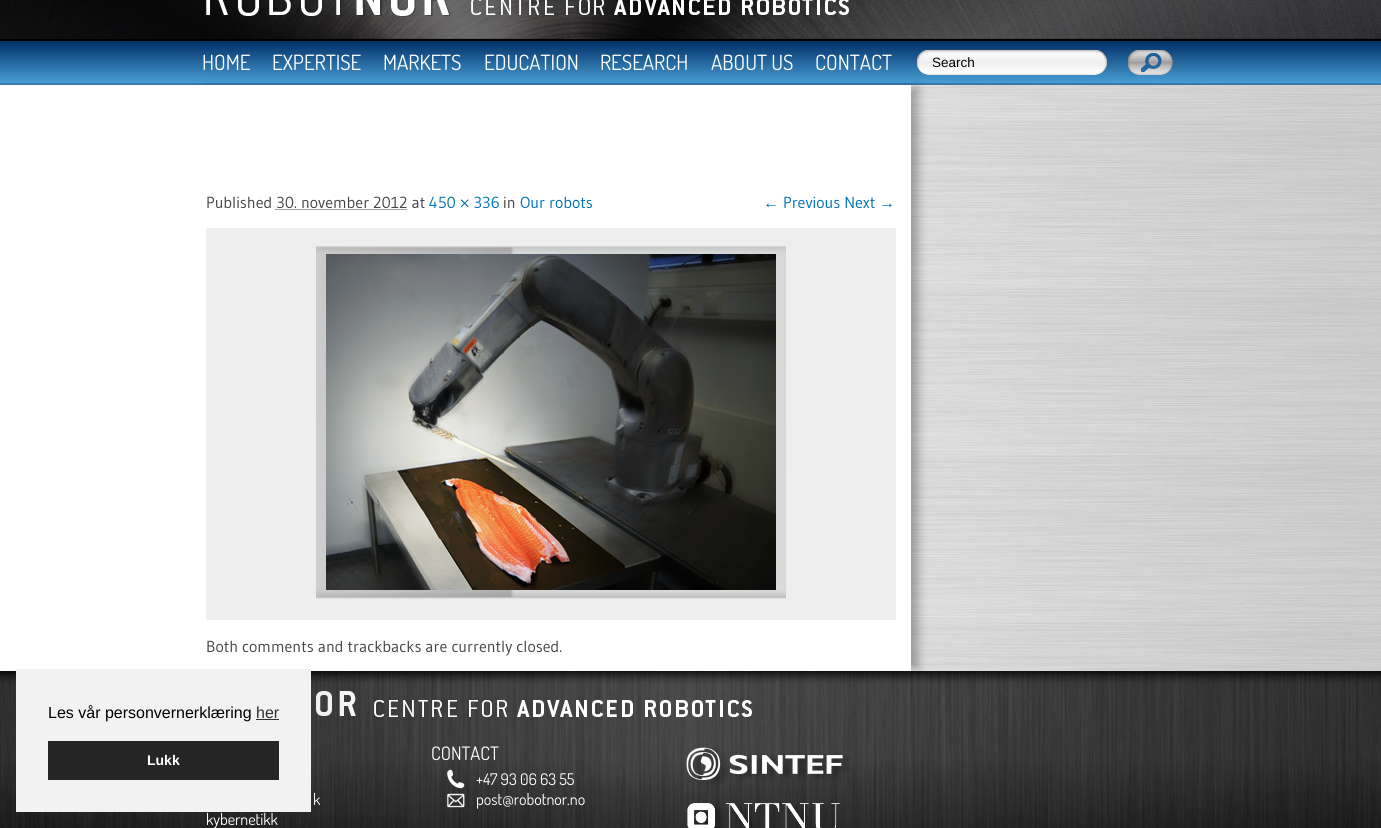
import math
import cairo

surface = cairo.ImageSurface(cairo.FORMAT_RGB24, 1381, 828)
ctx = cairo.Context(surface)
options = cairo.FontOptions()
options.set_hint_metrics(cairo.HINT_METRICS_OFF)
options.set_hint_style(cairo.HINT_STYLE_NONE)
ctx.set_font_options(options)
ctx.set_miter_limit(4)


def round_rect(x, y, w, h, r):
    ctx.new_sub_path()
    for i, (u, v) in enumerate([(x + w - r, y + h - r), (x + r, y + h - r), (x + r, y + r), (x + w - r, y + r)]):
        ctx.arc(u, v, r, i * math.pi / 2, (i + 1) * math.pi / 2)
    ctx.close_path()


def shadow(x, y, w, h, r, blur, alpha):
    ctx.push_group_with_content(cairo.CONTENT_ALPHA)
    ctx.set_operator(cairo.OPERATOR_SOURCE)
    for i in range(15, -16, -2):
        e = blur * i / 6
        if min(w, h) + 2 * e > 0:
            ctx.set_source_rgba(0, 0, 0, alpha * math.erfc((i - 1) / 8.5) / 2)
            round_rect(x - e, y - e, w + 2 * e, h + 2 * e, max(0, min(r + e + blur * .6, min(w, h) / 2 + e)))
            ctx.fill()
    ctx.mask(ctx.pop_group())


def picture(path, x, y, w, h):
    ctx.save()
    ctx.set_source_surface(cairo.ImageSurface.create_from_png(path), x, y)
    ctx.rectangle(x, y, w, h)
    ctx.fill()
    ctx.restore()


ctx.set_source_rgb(1, 1, 1)
ctx.paint()
picture("img1.png", 911, 85, 470, 586)
gradient = cairo.LinearGradient(691, 41, 691, 83)
gradient.add_color_stop_rgba(0, 0.004, 0.184, 0.404, 1)
gradient.add_color_stop_rgba(1, 0.275, 0.616, 0.827, 1)
ctx.set_source(gradient)
ctx.rectangle(0, 41, 1381, 42)
ctx.fill()
ctx.set_source_rgb(0.224, 0.475, 0.682)
ctx.rectangle(0, 83, 1381, 2)
ctx.fill()
picture("img4.png", 916, 49, 192, 26)
picture("img7.png", 0, 671, 1381, 157)
ctx.set_source_rgb(0, 0, 0)
shadow(204, 88, 714, 580, 0, 5, 0.3)
ctx.set_source_rgb(1, 1, 1)
ctx.rectangle(195, 85, 716, 586)
ctx.fill()
ctx.set_source_rgb(0.949, 0.949, 0.949)
ctx.rectangle(16, 669, 295, 143)
ctx.fill()
ctx.select_font_face("Liberation Sans")
ctx.set_font_size(16)
ctx.set_source_rgb(0, 0, 0)
ctx.move_to(48, 718)
ctx.show_text("Les vår personvernerklæring")
ctx.set_source_rgb(0.188, 0.188, 0.188)
ctx.move_to(256, 718)
ctx.show_text("her")
ctx.rectangle(256, 719, 23, 1)
ctx.fill()
ctx.set_source_rgb(0.145, 0.145, 0.145)
ctx.rectangle(48, 741, 231, 39)
ctx.fill()
ctx.select_font_face("Liberation Sans", cairo.FONT_SLANT_NORMAL, cairo.FONT_WEIGHT_BOLD)
ctx.set_font_size(14)
ctx.set_source_rgb(1, 1, 1)
ctx.move_to(147, 765)
ctx.show_text("Lukk")
picture("img2.png", 0, 0, 1381, 39)
picture("img3.png", 206, 0, 643, 17)
ctx.set_source_rgb(0, 0, 0)
ctx.rectangle(0, 39, 1381, 2)
ctx.fill()
ctx.select_font_face("Dosis")
ctx.set_font_size(21)
ctx.set_source_rgb(1, 1, 1)
ctx.move_to(202, 70)
ctx.show_text("HOME")
ctx.move_to(272, 70)
ctx.show_text("EXPERTISE")
ctx.move_to(383, 70)
ctx.show_text("MARKETS")
ctx.move_to(484, 70)
ctx.show_text("EDUCATION")
ctx.move_to(600, 70)
ctx.show_text("RESEARCH")
ctx.move_to(711, 70)
ctx.show_text("ABOUT US")
ctx.move_to(815, 70)
ctx.show_text("CONTACT")
ctx.select_font_face("Liberation Sans")
ctx.set_font_size(13.5)
ctx.set_source_rgb(0, 0, 0)
ctx.move_to(932, 67)
ctx.show_text("Search")
picture("img5.png", 1128, 49, 45, 26)
ctx.select_font_face("Gudea")
ctx.set_font_size(16)
ctx.set_source_rgb(0.267, 0.267, 0.267)
ctx.move_to(206, 208)
ctx.show_text("Published 30. november 2012 at")
ctx.set_source_rgb(0, 0.443, 0.706)
ctx.move_to(429, 208)
ctx.show_text("450 × 336")
ctx.set_source_rgb(0.267, 0.267, 0.267)
ctx.move_to(503, 208)
ctx.show_text("in")
ctx.set_source_rgb(0, 0.443, 0.706)
ctx.move_to(520, 208)
ctx.show_text("Our robots")
ctx.new_path()
ctx.move_to(275.5, 209.5)
ctx.line_to(407, 209.5)
ctx.set_source_rgb(0.267, 0.267, 0.267)
ctx.set_line_width(1)
ctx.set_dash([1, 1])
ctx.stroke()
ctx.select_font_face("Liberation Sans")
ctx.set_source_rgb(0, 0.443, 0.706)
ctx.move_to(763, 208)
ctx.show_text("←")
ctx.select_font_face("Gudea")
ctx.move_to(783, 208)
ctx.show_text("Previous Next")
ctx.select_font_face("Liberation Sans")
ctx.move_to(879, 208)
ctx.show_text("→")
ctx.set_source_rgb(0.933, 0.933, 0.933)
ctx.rectangle(206, 228, 690, 392)
ctx.fill()
picture("img6.png", 316, 246, 470, 353)
ctx.select_font_face("Gudea")
ctx.set_source_rgb(0.267, 0.267, 0.267)
ctx.move_to(206, 652)
ctx.show_text("Both comments and trackbacks are currently closed.")
picture("img8.png", 316, 691, 436, 26)
ctx.select_font_face("Dosis")
ctx.set_source_rgb(1, 1, 1)
ctx.move_to(313, 805)
ctx.show_text("k")
ctx.move_to(206, 825)
ctx.show_text("kybernetikk")
ctx.set_font_size(18.5)
ctx.move_to(431, 760)
ctx.show_text("CONTACT")
picture("img9.png", 447, 769, 18, 20)
ctx.set_font_size(16)
ctx.move_to(476, 785)
ctx.show_text("+47 93 06 63 55")
picture("img10.png", 447, 793, 18, 15)
ctx.move_to(476, 805)
ctx.show_text("post@robotnor.no")
picture("img11.png", 686, 747, 164, 38)
picture("img12.png", 687, 803, 155, 25)
surface.write_to_png("page.png")
